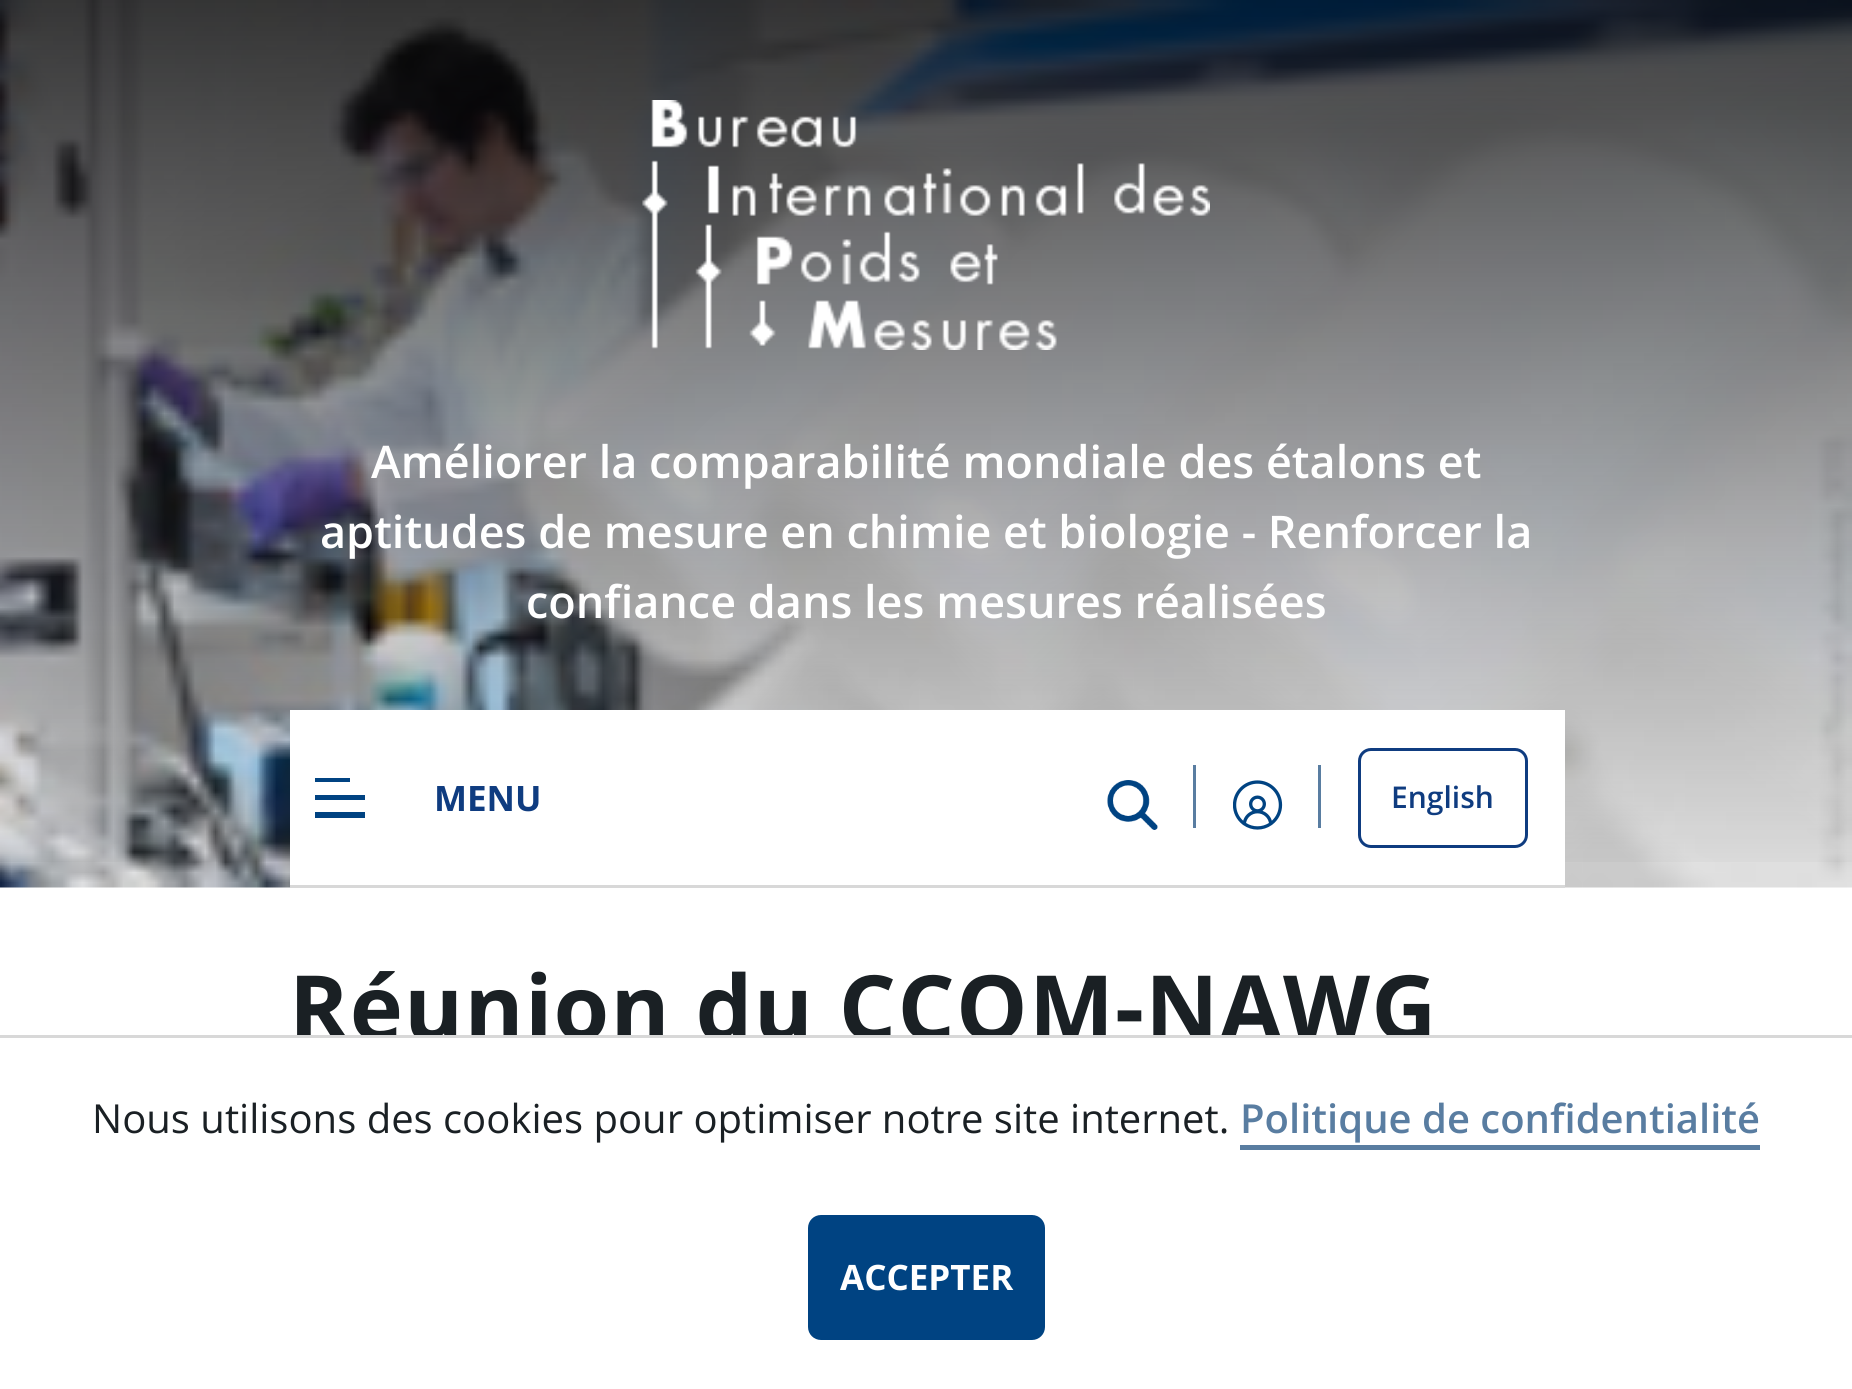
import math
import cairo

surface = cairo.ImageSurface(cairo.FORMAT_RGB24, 1852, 1389)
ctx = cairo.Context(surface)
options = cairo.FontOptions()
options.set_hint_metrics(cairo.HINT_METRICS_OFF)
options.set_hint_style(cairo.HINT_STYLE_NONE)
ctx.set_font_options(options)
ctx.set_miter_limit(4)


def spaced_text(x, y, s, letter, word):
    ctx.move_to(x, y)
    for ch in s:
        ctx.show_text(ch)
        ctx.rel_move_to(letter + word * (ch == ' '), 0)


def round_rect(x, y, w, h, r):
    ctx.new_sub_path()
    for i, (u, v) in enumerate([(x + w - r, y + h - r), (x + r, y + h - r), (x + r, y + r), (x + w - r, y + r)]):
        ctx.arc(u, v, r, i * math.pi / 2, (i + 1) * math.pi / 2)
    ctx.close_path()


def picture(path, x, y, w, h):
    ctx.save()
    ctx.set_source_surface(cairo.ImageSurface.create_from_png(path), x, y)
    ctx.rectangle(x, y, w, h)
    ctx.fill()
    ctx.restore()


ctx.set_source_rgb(1, 1, 1)
ctx.paint()
picture("img1.png", 0, 0, 1852, 888)
gradient = cairo.LinearGradient(926, 0, 926, 888)
gradient.add_color_stop_rgba(0, 0, 0, 0, 0.75)
gradient.add_color_stop_rgba(1, 0, 0, 0, 0)
ctx.set_source(gradient)
ctx.rectangle(0, 0, 1852, 862)
ctx.fill()
picture("img2.png", 642, 100, 568, 250)
ctx.select_font_face("Open Sans SemiBold")
ctx.set_font_size(45)
ctx.set_source_rgb(1, 1, 1)
ctx.move_to(371, 478)
ctx.show_text("Améliorer la comparabilité mondiale des étalons et")
ctx.move_to(320, 548)
ctx.show_text("aptitudes de mesure en chimie et biologie - Renforcer la")
ctx.move_to(526, 618)
ctx.show_text("confiance dans les mesures réalisées")
ctx.rectangle(290, 710, 1275, 175)
ctx.fill()
ctx.set_source_rgb(0.847, 0.847, 0.847)
ctx.rectangle(290, 885, 1275, 3)
ctx.fill()
ctx.set_source_rgb(0, 0.263, 0.51)
ctx.set_fill_rule(cairo.FILL_RULE_EVEN_ODD)
ctx.new_path()
ctx.move_to(315, 818)
ctx.line_to(365, 818)
ctx.line_to(365, 812)
ctx.line_to(315, 812)
ctx.close_path()
ctx.move_to(315, 782)
ctx.line_to(350, 782)
ctx.line_to(350, 778)
ctx.line_to(315, 778)
ctx.close_path()
ctx.move_to(315, 800)
ctx.line_to(365, 800)
ctx.line_to(365, 795)
ctx.line_to(315, 795)
ctx.close_path()
ctx.fill()
ctx.select_font_face("Open Sans", cairo.FONT_SLANT_NORMAL, cairo.FONT_WEIGHT_BOLD)
ctx.set_font_size(35)
ctx.set_source_rgb(0.059, 0.235, 0.502)
ctx.move_to(434, 811)
ctx.show_text("MENU")
picture("img3.png", 1107, 780, 51, 50)
ctx.set_source_rgb(0.349, 0.49, 0.631)
ctx.rectangle(1193, 765, 3, 63)
ctx.fill()
picture("img4.png", 1233, 780, 50, 50)
ctx.rectangle(1318, 765, 3, 63)
ctx.fill()
round_rect(1359.5, 749.5, 167, 97, 11.5)
ctx.set_source_rgb(0.059, 0.235, 0.502)
ctx.set_line_width(3)
ctx.stroke()
ctx.select_font_face("Open Sans SemiBold")
ctx.set_font_size(30)
ctx.move_to(1391, 808)
ctx.show_text("English")
ctx.select_font_face("Open Sans", cairo.FONT_SLANT_NORMAL, cairo.FONT_WEIGHT_BOLD)
ctx.set_font_size(90)
ctx.set_source_rgb(0.102, 0.125, 0.141)
spaced_text(289, 1040, "Réunion du CCQM-NAWG", 1.25, 0)
ctx.set_source_rgb(1, 1, 1)
ctx.rectangle(296, 1038, 1131, 18)
ctx.fill()
ctx.set_source_rgb(0.847, 0.847, 0.847)
ctx.rectangle(0, 1035, 1852, 3)
ctx.fill()
ctx.select_font_face("Open Sans")
ctx.set_font_size(40)
ctx.set_source_rgb(0.102, 0.125, 0.141)
ctx.move_to(92, 1133)
ctx.show_text("Nous utilisons des cookies pour optimiser notre site internet.")
ctx.set_source_rgb(0.349, 0.49, 0.631)
ctx.rectangle(1240, 1145, 520, 5)
ctx.fill()
ctx.select_font_face("Open Sans SemiBold")
ctx.move_to(1240, 1133)
ctx.show_text("Politique de confidentialité")
ctx.set_source_rgb(0, 0.263, 0.51)
round_rect(813, 1220, 227, 115, 8)
ctx.fill_preserve()
ctx.set_line_width(10)
ctx.stroke()
ctx.select_font_face("Open Sans", cairo.FONT_SLANT_NORMAL, cairo.FONT_WEIGHT_BOLD)
ctx.set_font_size(35)
ctx.set_source_rgb(1, 1, 1)
ctx.move_to(840, 1290)
ctx.show_text("ACCEPTER")
surface.write_to_png("page.png")
